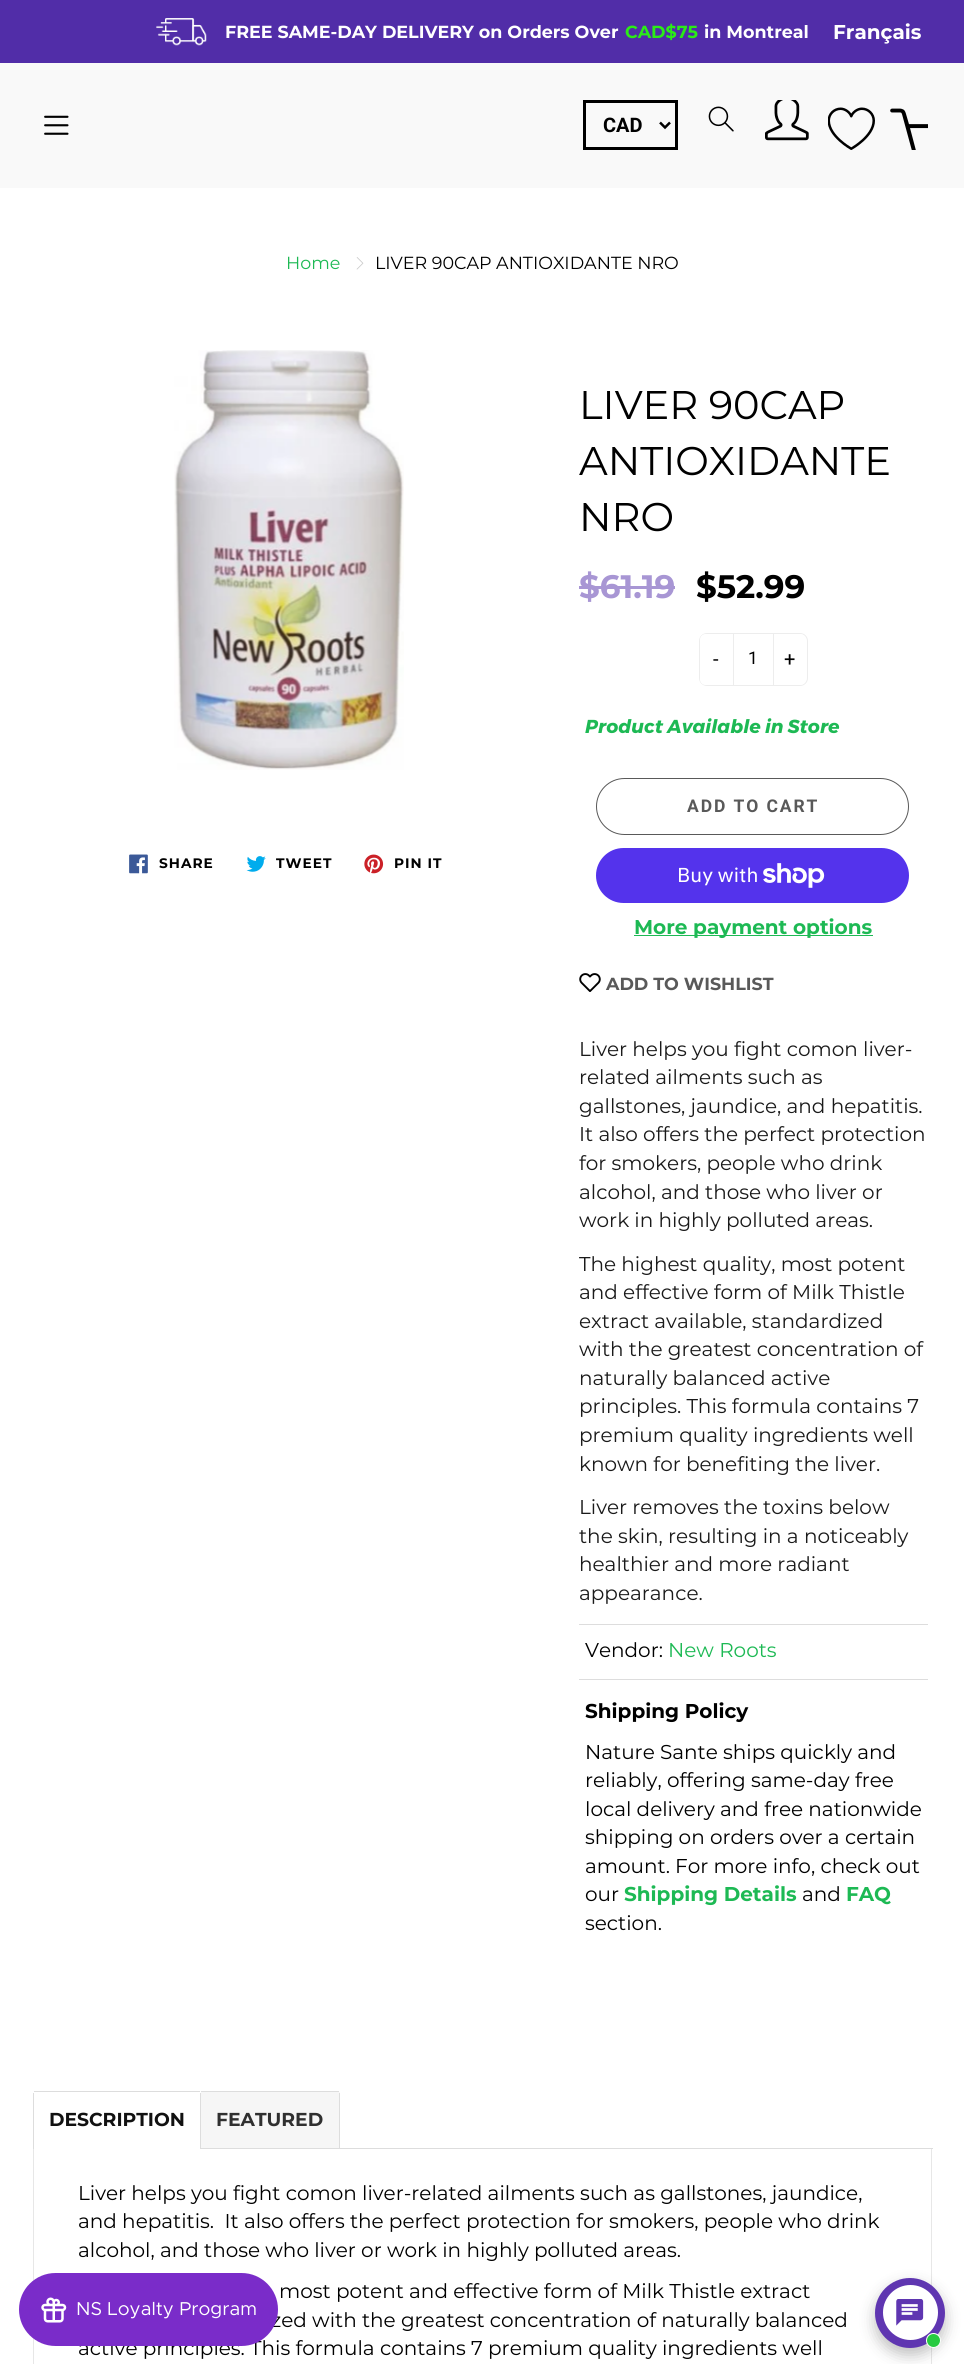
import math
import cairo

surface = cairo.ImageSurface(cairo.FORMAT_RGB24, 964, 2364)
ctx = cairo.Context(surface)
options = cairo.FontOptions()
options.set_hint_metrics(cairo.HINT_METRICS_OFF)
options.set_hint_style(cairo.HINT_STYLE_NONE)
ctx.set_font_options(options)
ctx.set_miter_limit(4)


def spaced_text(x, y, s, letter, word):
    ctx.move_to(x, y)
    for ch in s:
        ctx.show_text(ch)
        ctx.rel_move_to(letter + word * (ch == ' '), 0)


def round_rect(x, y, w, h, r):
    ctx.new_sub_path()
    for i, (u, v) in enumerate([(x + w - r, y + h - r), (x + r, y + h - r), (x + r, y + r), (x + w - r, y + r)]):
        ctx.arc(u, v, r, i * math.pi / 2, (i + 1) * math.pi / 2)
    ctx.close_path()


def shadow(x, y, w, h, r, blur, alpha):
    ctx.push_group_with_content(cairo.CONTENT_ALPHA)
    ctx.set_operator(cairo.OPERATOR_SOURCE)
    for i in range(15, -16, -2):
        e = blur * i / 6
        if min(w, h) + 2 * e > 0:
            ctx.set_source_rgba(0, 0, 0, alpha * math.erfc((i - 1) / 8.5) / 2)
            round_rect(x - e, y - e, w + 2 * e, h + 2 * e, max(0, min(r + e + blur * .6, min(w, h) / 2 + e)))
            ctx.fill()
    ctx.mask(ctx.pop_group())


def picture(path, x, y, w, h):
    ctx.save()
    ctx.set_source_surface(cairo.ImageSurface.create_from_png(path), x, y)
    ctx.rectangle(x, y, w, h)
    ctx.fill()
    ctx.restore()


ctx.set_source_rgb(1, 1, 1)
ctx.paint()
ctx.set_source_rgb(0.318, 0.176, 0.659)
ctx.rectangle(0, 0, 964, 63)
ctx.fill()
picture("img1.png", 156, 18, 51, 28)
ctx.select_font_face("Montserrat", cairo.FONT_SLANT_NORMAL, cairo.FONT_WEIGHT_BOLD)
ctx.set_font_size(17.5)
ctx.set_source_rgb(1, 1, 1)
ctx.move_to(225, 38)
ctx.show_text("FREE SAME-DAY DELIVERY on Orders Over")
ctx.set_source_rgb(0.169, 0.922, 0.09)
ctx.move_to(625, 38)
ctx.show_text("CAD$75")
ctx.set_source_rgb(1, 1, 1)
ctx.move_to(704, 38)
ctx.show_text("in Montreal")
ctx.set_source_rgb(0.976, 0.976, 0.976)
ctx.rectangle(0, 63, 964, 125)
ctx.fill()
picture("img2.png", 44, 115, 25, 20)
ctx.rectangle(584.5, 101.5, 92, 47)
ctx.set_source_rgb(0, 0, 0)
ctx.set_line_width(3)
ctx.stroke()
ctx.new_path()
ctx.move_to(660, 122.5)
ctx.line_to(665, 127.5)
ctx.line_to(670, 122.5)
ctx.set_line_width(2.5)
ctx.stroke()
ctx.select_font_face("Roboto", cairo.FONT_SLANT_NORMAL, cairo.FONT_WEIGHT_BOLD)
ctx.set_font_size(20)
ctx.move_to(603, 132)
ctx.show_text("CAD")
picture("img3.png", 708, 106, 26, 26)
picture("img4.png", 765, 100, 44, 41)
picture("img5.png", 828, 107, 47, 43)
picture("img6.png", 890, 108, 38, 42)
ctx.select_font_face("Montserrat")
ctx.set_font_size(17.5)
ctx.set_source_rgb(0.114, 0.725, 0.329)
ctx.move_to(286, 269)
ctx.show_text("Home")
picture("img7.png", 356, 257, 8, 13)
ctx.set_source_rgb(0, 0, 0)
ctx.move_to(375, 269)
ctx.show_text("LIVER 90CAP ANTIOXIDANTE NRO")
picture("img8.png", 174, 350, 230, 420)
picture("img9.png", 129, 854, 19, 20)
ctx.select_font_face("Montserrat", cairo.FONT_SLANT_NORMAL, cairo.FONT_WEIGHT_BOLD)
ctx.set_font_size(13.75)
spaced_text(159, 868, "SHARE", 1, 0)
picture("img10.png", 246, 856, 20, 16)
spaced_text(276, 868, "TWEET", 1, 0)
picture("img11.png", 364, 854, 20, 20)
spaced_text(394, 868, "PIN IT", 1, 0)
ctx.select_font_face("Montserrat")
ctx.set_font_size(40)
ctx.move_to(579, 419)
ctx.show_text("LIVER 90CAP")
ctx.move_to(579, 475)
ctx.show_text("ANTIOXIDANTE")
ctx.move_to(579, 531)
ctx.show_text("NRO")
ctx.select_font_face("Montserrat", cairo.FONT_SLANT_NORMAL, cairo.FONT_WEIGHT_BOLD)
ctx.set_font_size(32.5)
ctx.set_source_rgb(0.659, 0.588, 0.831)
ctx.move_to(579, 598)
ctx.show_text("$61.19")
ctx.rectangle(579, 586, 96, 3)
ctx.fill()
ctx.set_source_rgb(0, 0, 0)
ctx.move_to(696, 598)
ctx.show_text("$52.99")
round_rect(699.5, 633.5, 108, 52, 7.5)
ctx.set_source_rgb(0.929, 0.929, 0.929)
ctx.set_line_width(1)
ctx.stroke()
ctx.set_source_rgb(1, 1, 1)
ctx.new_path()
ctx.move_to(706, 634)
ctx.line_to(733, 634)
ctx.line_to(733, 685)
ctx.line_to(706, 685)
ctx.curve_to(702.5, 685, 700, 682.5, 700, 679)
ctx.line_to(700, 640)
ctx.curve_to(700, 636.5, 702.5, 634, 706, 634)
ctx.close_path()
ctx.fill()
ctx.select_font_face("Roboto")
ctx.set_font_size(20)
ctx.set_source_rgb(0, 0, 0)
ctx.move_to(713, 666)
ctx.show_text("-")
ctx.set_source_rgb(0.929, 0.929, 0.929)
ctx.rectangle(773, 634, 1, 51)
ctx.fill()
ctx.rectangle(733, 634, 1, 51)
ctx.fill()
ctx.set_font_size(17.5)
ctx.set_source_rgb(0, 0, 0)
ctx.move_to(748, 664)
ctx.show_text("1")
ctx.set_source_rgb(1, 1, 1)
ctx.new_path()
ctx.move_to(774, 634)
ctx.line_to(800, 634)
ctx.curve_to(803.5, 634, 806, 636.5, 806, 640)
ctx.line_to(806, 679)
ctx.curve_to(806, 682.5, 803.5, 685, 800, 685)
ctx.line_to(774, 685)
ctx.close_path()
ctx.fill()
ctx.set_font_size(20)
ctx.set_source_rgb(0, 0, 0)
ctx.move_to(784, 666)
ctx.show_text("+")
ctx.select_font_face("Montserrat", cairo.FONT_SLANT_ITALIC, cairo.FONT_WEIGHT_BOLD)
ctx.set_font_size(18.75)
ctx.set_source_rgb(0.114, 0.725, 0.329)
ctx.move_to(585, 733)
ctx.show_text("Product Available in Store")
round_rect(596.5, 778.5, 312, 56, 28)
ctx.set_source_rgb(0.349, 0.349, 0.349)
ctx.stroke()
ctx.select_font_face("Roboto", cairo.FONT_SLANT_NORMAL, cairo.FONT_WEIGHT_BOLD)
ctx.set_font_size(17.5)
spaced_text(687, 812, "ADD TO CART", 1.9, 0)
ctx.set_source_rgb(0.329, 0.2, 0.922)
round_rect(596, 848, 313, 55, 27.5)
ctx.fill()
ctx.select_font_face("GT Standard")
ctx.set_font_size(20)
ctx.set_source_rgb(1, 1, 1)
ctx.move_to(677, 882)
ctx.show_text("Buy with")
picture("img12.png", 763, 863, 62, 25)
ctx.set_source_rgb(0.114, 0.725, 0.329)
ctx.rectangle(634, 935, 239, 1)
ctx.fill()
ctx.select_font_face("Montserrat", cairo.FONT_SLANT_NORMAL, cairo.FONT_WEIGHT_BOLD)
ctx.move_to(634, 934)
ctx.show_text("More payment options")
picture("img13.png", 579, 973, 22, 19)
ctx.set_font_size(17.5)
ctx.set_source_rgb(0.349, 0.349, 0.349)
ctx.move_to(606, 990)
ctx.show_text("ADD TO WISHLIST")
ctx.select_font_face("Montserrat")
ctx.set_font_size(20)
ctx.set_source_rgb(0.102, 0.102, 0.102)
ctx.move_to(579, 1056)
ctx.show_text("Liver helps you fight comon liver-")
ctx.move_to(579, 1084)
ctx.show_text("related ailments such as")
ctx.move_to(579, 1113)
ctx.show_text("gallstones, jaundice, and hepatitis.")
ctx.move_to(579, 1141)
ctx.show_text("It also offers the perfect protection")
ctx.move_to(579, 1170)
ctx.show_text("for smokers, people who drink")
ctx.move_to(579, 1199)
ctx.show_text("alcohol, and those who liver or")
ctx.move_to(579, 1227)
ctx.show_text("work in highly polluted areas.")
ctx.move_to(579, 1271)
ctx.show_text("The highest quality, most potent")
ctx.move_to(579, 1299)
ctx.show_text("and effective form of Milk Thistle")
ctx.move_to(579, 1328)
ctx.show_text("extract available, standardized")
ctx.move_to(579, 1356)
ctx.show_text("with the greatest concentration of")
ctx.move_to(579, 1385)
ctx.show_text("naturally balanced active")
ctx.move_to(579, 1413)
ctx.show_text("principles. This formula contains 7")
ctx.move_to(579, 1442)
ctx.show_text("premium quality ingredients well")
ctx.move_to(579, 1471)
ctx.show_text("known for benefiting the liver.")
ctx.move_to(579, 1514)
ctx.show_text("Liver removes the toxins below")
ctx.move_to(579, 1543)
ctx.show_text("the skin, resulting in a noticeably")
ctx.move_to(579, 1571)
ctx.show_text("healthier and more radiant")
ctx.move_to(579, 1600)
ctx.show_text("appearance.")
ctx.set_source_rgb(0.867, 0.867, 0.867)
ctx.rectangle(579, 1624, 349, 1)
ctx.fill()
ctx.set_source_rgb(0, 0, 0)
ctx.move_to(585, 1657)
ctx.show_text("Vendor:")
ctx.set_source_rgb(0.114, 0.725, 0.329)
ctx.move_to(668, 1657)
ctx.show_text("New Roots")
ctx.set_source_rgb(0.867, 0.867, 0.867)
ctx.rectangle(579, 1679, 349, 1)
ctx.fill()
ctx.select_font_face("Montserrat", cairo.FONT_SLANT_NORMAL, cairo.FONT_WEIGHT_BOLD)
ctx.set_source_rgb(0, 0, 0)
ctx.move_to(585, 1718)
ctx.show_text("Shipping Policy")
ctx.select_font_face("Montserrat")
ctx.move_to(585, 1759)
ctx.show_text("Nature Sante ships quickly and")
ctx.move_to(585, 1787)
ctx.show_text("reliably, offering same-day free")
ctx.move_to(585, 1816)
ctx.show_text("local delivery and free nationwide")
ctx.move_to(585, 1844)
ctx.show_text("shipping on orders over a certain")
ctx.move_to(585, 1873)
ctx.show_text("amount. For more info, check out")
ctx.move_to(585, 1901)
ctx.show_text("our")
ctx.select_font_face("Montserrat", cairo.FONT_SLANT_NORMAL, cairo.FONT_WEIGHT_BOLD)
ctx.set_source_rgb(0.114, 0.725, 0.329)
ctx.move_to(624, 1901)
ctx.show_text("Shipping Details")
ctx.select_font_face("Montserrat")
ctx.set_source_rgb(0, 0, 0)
ctx.move_to(802, 1901)
ctx.show_text("and")
ctx.select_font_face("Montserrat", cairo.FONT_SLANT_NORMAL, cairo.FONT_WEIGHT_BOLD)
ctx.set_source_rgb(0.114, 0.725, 0.329)
ctx.move_to(846, 1901)
ctx.show_text("FAQ")
ctx.select_font_face("Montserrat")
ctx.set_source_rgb(0, 0, 0)
ctx.move_to(585, 1930)
ctx.show_text("section.")
ctx.set_source_rgb(0.867, 0.867, 0.867)
ctx.rectangle(201, 2148, 732, 1)
ctx.fill()
ctx.rectangle(34, 2091, 166, 1)
ctx.fill()
ctx.rectangle(200, 2093, 1, 56)
ctx.fill()
ctx.rectangle(33, 2093, 1, 56)
ctx.fill()
ctx.select_font_face("Montserrat", cairo.FONT_SLANT_NORMAL, cairo.FONT_WEIGHT_BOLD)
ctx.set_font_size(18.75)
ctx.set_source_rgb(0.067, 0.067, 0.067)
ctx.move_to(49, 2126)
ctx.show_text("DESCRIPTION")
ctx.set_source_rgb(0.961, 0.961, 0.961)
ctx.new_path()
ctx.move_to(201, 2091)
ctx.line_to(337.5, 2091)
ctx.curve_to(339, 2091, 340, 2092, 340, 2093.5)
ctx.line_to(340, 2148)
ctx.line_to(201, 2148)
ctx.close_path()
ctx.fill()
ctx.set_source_rgb(0.867, 0.867, 0.867)
ctx.rectangle(201, 2091, 138, 1)
ctx.fill()
ctx.rectangle(339, 2093, 1, 55)
ctx.fill()
ctx.set_source_rgb(0.188, 0.188, 0.188)
ctx.move_to(216, 2126)
ctx.show_text("FEATURED")
ctx.set_source_rgb(0.906, 0.906, 0.906)
ctx.rectangle(931, 2149, 1, 215)
ctx.fill()
ctx.rectangle(33, 2149, 1, 215)
ctx.fill()
ctx.select_font_face("Montserrat")
ctx.set_font_size(20)
ctx.set_source_rgb(0, 0, 0)
ctx.move_to(78, 2200)
ctx.show_text("Liver helps you fight comon liver-related ailments such as gallstones, jaundice,")
ctx.move_to(78, 2228)
ctx.show_text("and hepatitis.  It also offers the perfect protection for smokers, people who drink")
ctx.move_to(78, 2257)
ctx.show_text("alcohol, and those who liver or work in highly polluted areas.")
ctx.move_to(279, 2298)
ctx.show_text("most potent and effective form of Milk Thistle extract")
ctx.move_to(271, 2327)
ctx.show_text("zed with the greatest concentration of naturally balanced")
ctx.move_to(78, 2355)
ctx.show_text("active principles. This formula contains 7 premium quality ingredients well")
ctx.select_font_face("Montserrat", cairo.FONT_SLANT_NORMAL, cairo.FONT_WEIGHT_BOLD)
ctx.set_source_rgb(1, 1, 1)
ctx.move_to(833, 39)
ctx.show_text("Français")
ctx.set_source_rgb(0.478, 0.173, 0.788)
round_rect(19, 2273, 259, 73, 36.5)
ctx.fill()
picture("img14.png", 41, 2297, 26, 26)
ctx.select_font_face("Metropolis")
ctx.set_font_size(18.75)
ctx.set_source_rgb(1, 1, 1)
ctx.move_to(76, 2315)
ctx.show_text("NS Loyalty Program")
ctx.set_source_rgb(0, 0, 0)
shadow(875, 2285, 70, 70, 35, 7.5, 0.25)
ctx.set_source_rgb(0.373, 0.212, 0.694)
ctx.arc(910, 2313, 35, 0, 2 * math.pi)
ctx.fill()
ctx.set_source_rgb(1, 1, 1)
ctx.arc(910.5, 2312.5, 27.5, 0, 2 * math.pi)
ctx.fill()
picture("img15.png", 896, 2299, 28, 27)
ctx.set_source_rgb(0.153, 0.792, 0.251)
ctx.arc(933.5, 2340.5, 7, 0, 2 * math.pi)
ctx.fill_preserve()
ctx.set_source_rgb(1, 1, 1)
ctx.stroke()
surface.write_to_png("page.png")
